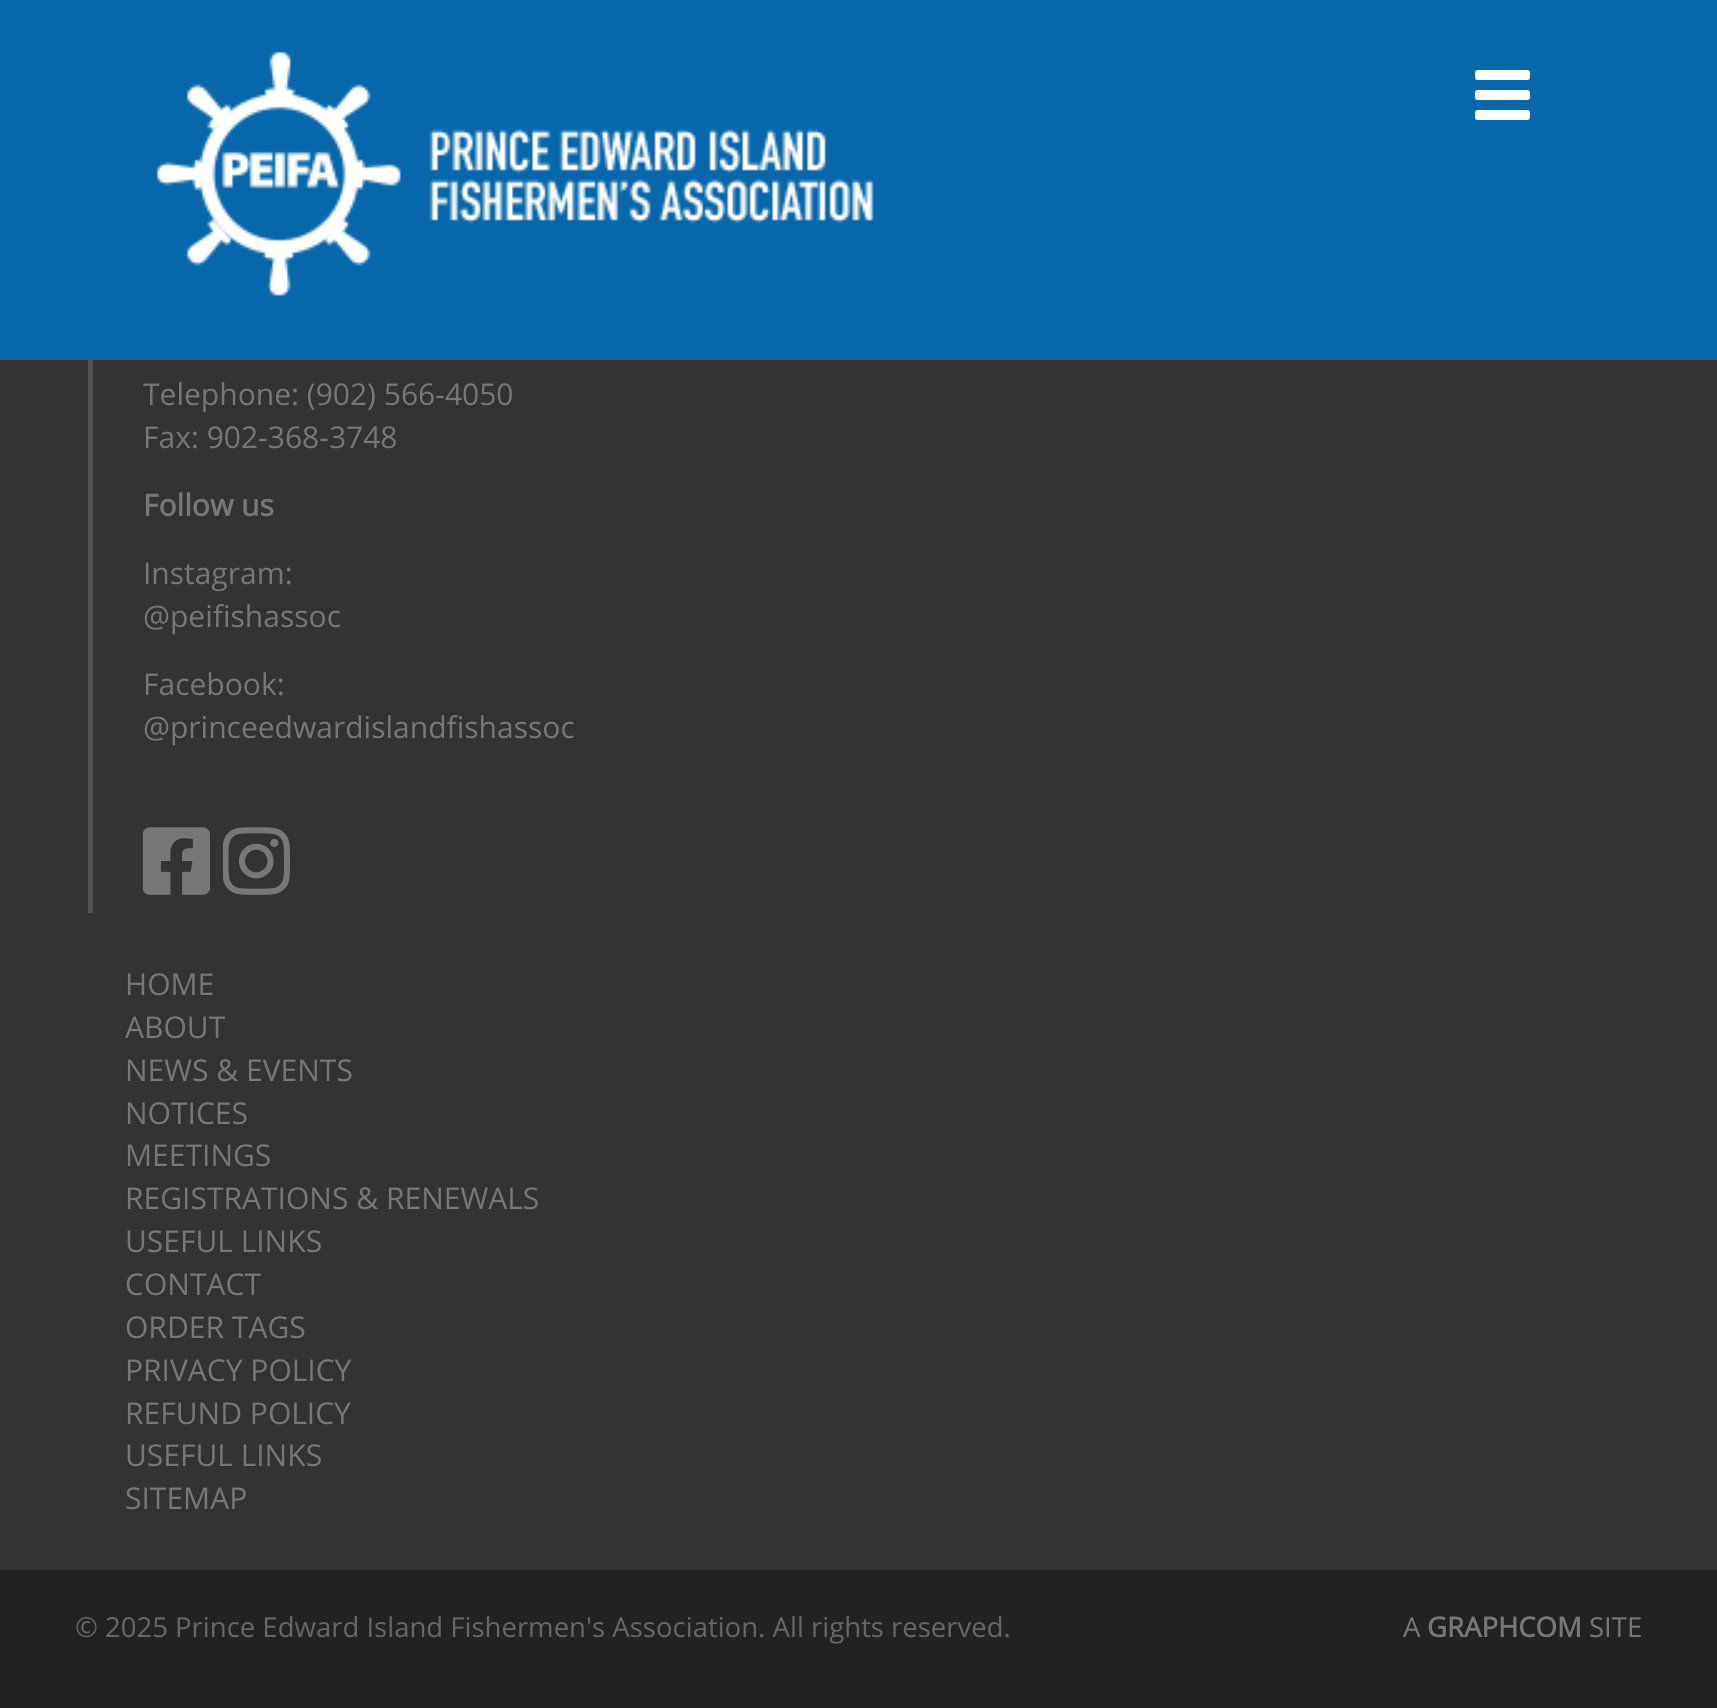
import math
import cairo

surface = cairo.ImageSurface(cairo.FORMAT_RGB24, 1717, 1708)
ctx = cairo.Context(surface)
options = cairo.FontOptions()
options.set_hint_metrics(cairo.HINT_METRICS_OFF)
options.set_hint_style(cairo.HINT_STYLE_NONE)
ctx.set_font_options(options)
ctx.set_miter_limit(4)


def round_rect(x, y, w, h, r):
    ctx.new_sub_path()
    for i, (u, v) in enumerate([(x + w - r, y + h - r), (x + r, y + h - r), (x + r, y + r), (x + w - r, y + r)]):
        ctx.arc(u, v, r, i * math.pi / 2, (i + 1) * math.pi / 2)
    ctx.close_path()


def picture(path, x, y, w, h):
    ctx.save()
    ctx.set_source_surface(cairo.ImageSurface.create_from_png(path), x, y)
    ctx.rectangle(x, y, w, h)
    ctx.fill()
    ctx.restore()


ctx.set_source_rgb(0.2, 0.2, 0.2)
ctx.paint()
ctx.set_source_rgb(0.031, 0.404, 0.671)
ctx.rectangle(0, 0, 1717, 360)
ctx.fill()
picture("img1.png", 156, 51, 718, 245)
ctx.set_source_rgb(1, 1, 1)
round_rect(1475, 70, 55, 10, 2.5)
ctx.fill()
round_rect(1475, 90, 55, 10, 2.5)
ctx.fill()
round_rect(1475, 110, 55, 10, 2.5)
ctx.fill()
ctx.set_source_rgb(0.333, 0.333, 0.333)
ctx.rectangle(88, 360, 5, 553)
ctx.fill()
ctx.select_font_face("Open Sans")
ctx.set_font_size(30)
ctx.set_source_rgb(0.467, 0.467, 0.467)
ctx.move_to(143, 405)
ctx.show_text("Telephone: (902) 566-4050")
ctx.move_to(143, 448)
ctx.show_text("Fax: 902-368-3748")
ctx.select_font_face("Open Sans", cairo.FONT_SLANT_NORMAL, cairo.FONT_WEIGHT_BOLD)
ctx.move_to(143, 516)
ctx.show_text("Follow us")
ctx.select_font_face("Open Sans")
ctx.move_to(143, 584)
ctx.show_text("Instagram:")
ctx.move_to(143, 627)
ctx.show_text("@peifishassoc")
ctx.move_to(143, 695)
ctx.show_text("Facebook:")
ctx.move_to(143, 738)
ctx.show_text("@princeedwardislandfishassoc")
picture("img2.png", 143, 827, 67, 68)
picture("img3.png", 223, 827, 67, 68)
ctx.move_to(125, 995)
ctx.show_text("HOME")
ctx.move_to(125, 1038)
ctx.show_text("ABOUT")
ctx.move_to(125, 1081)
ctx.show_text("NEWS & EVENTS")
ctx.move_to(125, 1124)
ctx.show_text("NOTICES")
ctx.move_to(125, 1166)
ctx.show_text("MEETINGS")
ctx.move_to(125, 1209)
ctx.show_text("REGISTRATIONS & RENEWALS")
ctx.move_to(125, 1252)
ctx.show_text("USEFUL LINKS")
ctx.move_to(125, 1295)
ctx.show_text("CONTACT")
ctx.move_to(125, 1338)
ctx.show_text("ORDER TAGS")
ctx.move_to(125, 1381)
ctx.show_text("PRIVACY POLICY")
ctx.move_to(125, 1424)
ctx.show_text("REFUND POLICY")
ctx.move_to(125, 1466)
ctx.show_text("USEFUL LINKS")
ctx.move_to(125, 1509)
ctx.show_text("SITEMAP")
ctx.set_source_rgb(0.133, 0.133, 0.133)
ctx.rectangle(0, 1570, 1717, 138)
ctx.fill()
ctx.set_font_size(27.5)
ctx.set_source_rgb(0.4, 0.4, 0.4)
ctx.move_to(75, 1637)
ctx.show_text("© 2025 Prince Edward Island Fishermen's Association. All rights reserved.")
ctx.set_source_rgb(0.467, 0.467, 0.467)
ctx.move_to(1403, 1637)
ctx.show_text("A")
ctx.select_font_face("Open Sans", cairo.FONT_SLANT_NORMAL, cairo.FONT_WEIGHT_BOLD)
ctx.move_to(1427, 1637)
ctx.show_text("GRAPHCOM")
ctx.select_font_face("Open Sans")
ctx.move_to(1589, 1637)
ctx.show_text("SITE")
surface.write_to_png("page.png")
